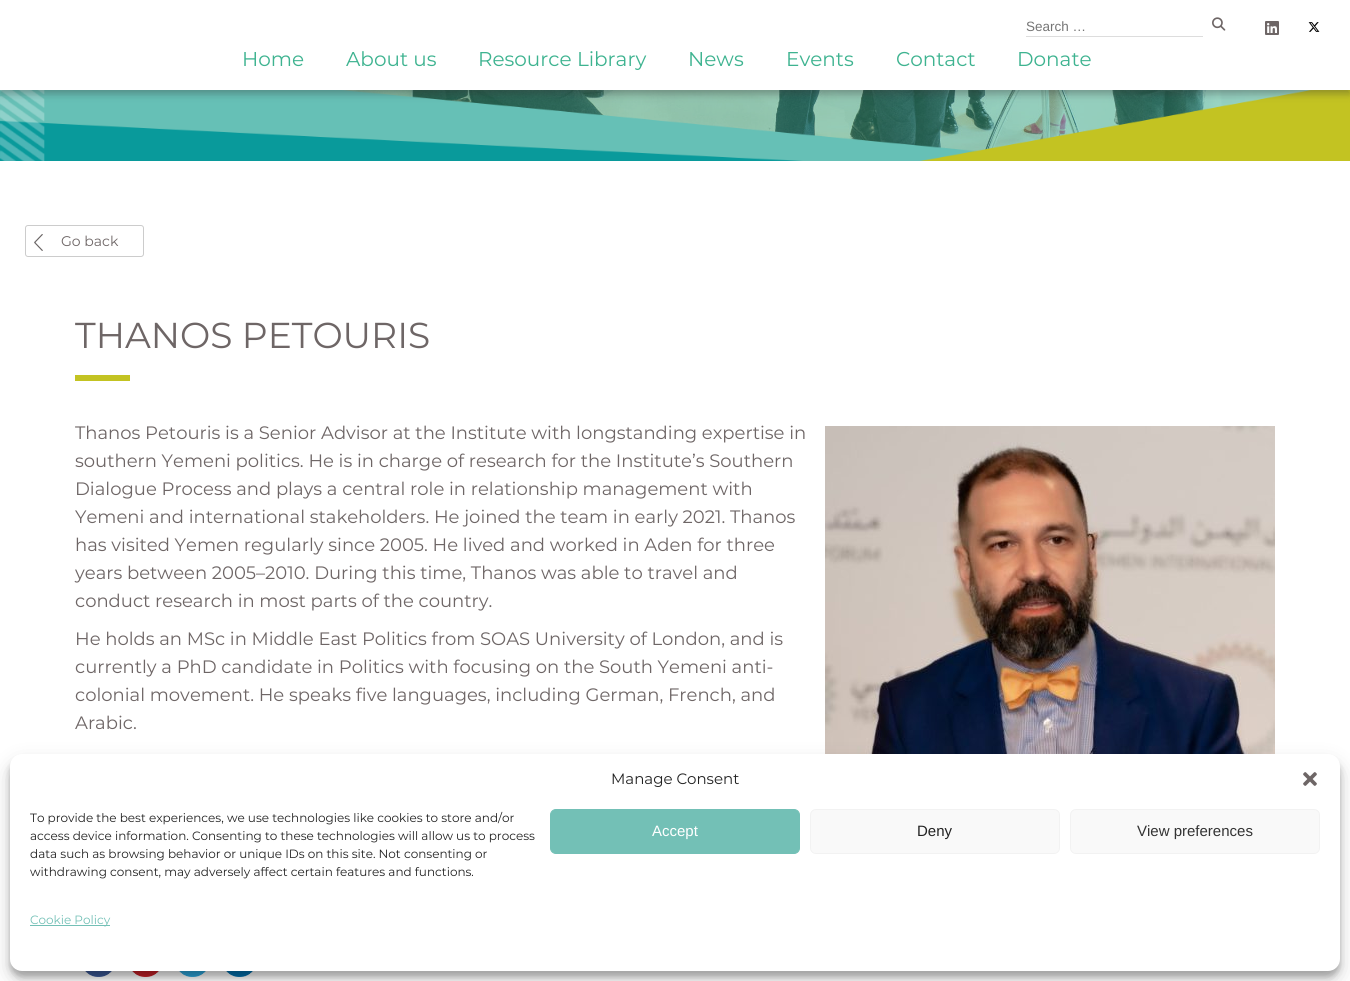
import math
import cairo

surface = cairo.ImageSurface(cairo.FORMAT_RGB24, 1350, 981)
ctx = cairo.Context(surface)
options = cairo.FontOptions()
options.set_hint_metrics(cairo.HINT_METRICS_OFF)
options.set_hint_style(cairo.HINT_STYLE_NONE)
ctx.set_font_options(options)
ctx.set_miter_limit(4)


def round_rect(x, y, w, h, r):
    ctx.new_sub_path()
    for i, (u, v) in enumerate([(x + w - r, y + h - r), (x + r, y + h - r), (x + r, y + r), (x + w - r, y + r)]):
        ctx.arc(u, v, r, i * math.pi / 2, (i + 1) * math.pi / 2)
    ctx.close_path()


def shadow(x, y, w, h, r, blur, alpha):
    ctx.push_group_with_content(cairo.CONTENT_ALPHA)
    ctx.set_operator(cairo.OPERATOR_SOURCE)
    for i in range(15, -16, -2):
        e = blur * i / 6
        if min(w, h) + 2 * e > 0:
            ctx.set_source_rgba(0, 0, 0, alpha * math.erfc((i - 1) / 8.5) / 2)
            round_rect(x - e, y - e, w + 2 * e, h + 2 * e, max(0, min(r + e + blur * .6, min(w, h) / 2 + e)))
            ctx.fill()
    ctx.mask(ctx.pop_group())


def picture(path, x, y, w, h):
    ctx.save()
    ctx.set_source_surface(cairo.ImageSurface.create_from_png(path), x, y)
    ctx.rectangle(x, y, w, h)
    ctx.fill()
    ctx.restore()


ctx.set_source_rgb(1, 1, 1)
ctx.paint()
picture("img5.png", 335, 90, 980, 62)
picture("img4.png", 0, 90, 1350, 71)
ctx.set_source_rgb(0.196, 0.196, 0.196)
shadow(0, 4, 1350, 90, 0, 4, 0.36)
ctx.set_source_rgb(1, 1, 1)
ctx.rectangle(0, 0, 1350, 90)
ctx.fill()
ctx.set_source_rgb(0.867, 0.867, 0.867)
ctx.rectangle(1026, 36, 177, 1)
ctx.fill()
ctx.select_font_face("Liberation Sans")
ctx.set_font_size(13.5)
ctx.set_source_rgb(0.459, 0.459, 0.459)
ctx.move_to(1026, 31)
ctx.show_text("Search …")
picture("img1.png", 1212, 17, 14, 14)
picture("img2.png", 1265, 21, 14, 14)
picture("img3.png", 1308, 22, 12, 10)
ctx.select_font_face("Montserrat")
ctx.set_font_size(20)
ctx.set_source_rgb(0.243, 0.702, 0.565)
ctx.move_to(242, 66)
ctx.show_text("Home")
ctx.move_to(346, 66)
ctx.show_text("About us")
ctx.move_to(478, 66)
ctx.show_text("Resource Library")
ctx.move_to(688, 66)
ctx.show_text("News")
ctx.move_to(786, 66)
ctx.show_text("Events")
ctx.move_to(896, 66)
ctx.show_text("Contact")
ctx.move_to(1017, 66)
ctx.show_text("Donate")
picture("img6.png", 34, 234, 9, 17)
round_rect(25.5, 225.5, 118, 31, 2.5)
ctx.set_source_rgb(0.8, 0.8, 0.8)
ctx.set_line_width(1)
ctx.stroke()
ctx.set_font_size(14)
ctx.set_source_rgb(0.431, 0.4, 0.4)
ctx.move_to(61, 246)
ctx.show_text("Go back")
ctx.set_font_size(36)
ctx.move_to(75, 348)
ctx.show_text("THANOS PETOURIS")
ctx.set_source_rgb(0.765, 0.765, 0.133)
ctx.rectangle(75, 375, 55, 6)
ctx.fill()
ctx.set_font_size(18)
ctx.set_source_rgb(0.431, 0.4, 0.4)
ctx.move_to(75, 439)
ctx.show_text("Thanos Petouris is a Senior Advisor at the Institute with longstanding expertise in")
ctx.move_to(75, 467)
ctx.show_text("southern Yemeni politics. He is in charge of research for the Institute’s Southern")
ctx.move_to(75, 495)
ctx.show_text("Dialogue Process and plays a central role in relationship management with")
ctx.move_to(75, 523)
ctx.show_text("Yemeni and international stakeholders. He joined the team in early 2021. Thanos")
ctx.move_to(75, 551)
ctx.show_text("has visited Yemen regularly since 2005. He lived and worked in Aden for three")
ctx.move_to(75, 579)
ctx.show_text("years between 2005–2010. During this time, Thanos was able to travel and")
ctx.move_to(75, 607)
ctx.show_text("conduct research in most parts of the country.")
ctx.move_to(75, 645)
ctx.show_text("He holds an MSc in Middle East Politics from SOAS University of London, and is")
ctx.move_to(75, 673)
ctx.show_text("currently a PhD candidate in Politics with focusing on the South Yemeni anti-")
ctx.move_to(75, 701)
ctx.show_text("colonial movement. He speaks five languages, including German, French, and")
ctx.move_to(75, 729)
ctx.show_text("Arabic.")
picture("img7.png", 825, 426, 450, 328)
picture("img8.png", 85, 971, 27, 6)
picture("img9.png", 132, 971, 27, 6)
picture("img10.png", 179, 971, 27, 6)
picture("img11.png", 226, 971, 27, 6)
ctx.set_source_rgb(0, 0, 0)
shadow(10, 760, 1330, 217, 12, 3, 0.23)
shadow(10, 764, 1330, 217, 12, 10, 0.19)
ctx.set_source_rgb(1, 1, 1)
round_rect(10, 754, 1330, 217, 12)
ctx.fill()
ctx.set_font_size(15)
ctx.set_source_rgb(0.133, 0.133, 0.133)
ctx.move_to(611, 784)
ctx.show_text("Manage Consent")
picture("img12.png", 1303, 772, 14, 14)
ctx.set_font_size(12)
ctx.move_to(30, 822)
ctx.show_text("To provide the best experiences, we use technologies like cookies to store and/or")
ctx.move_to(30, 840)
ctx.show_text("access device information. Consenting to these technologies will allow us to process")
ctx.move_to(30, 858)
ctx.show_text("data such as browsing behavior or unique IDs on this site. Not consenting or")
ctx.move_to(30, 876)
ctx.show_text("withdrawing consent, may adversely affect certain features and functions.")
ctx.set_source_rgb(0.451, 0.753, 0.714)
round_rect(550.5, 809.5, 249, 44, 5.5)
ctx.fill_preserve()
ctx.stroke()
ctx.select_font_face("Liberation Sans")
ctx.set_font_size(15)
ctx.set_source_rgb(1, 1, 1)
ctx.move_to(652, 836)
ctx.show_text("Accept")
ctx.set_source_rgb(0.976, 0.976, 0.976)
round_rect(810.5, 809.5, 249, 44, 5.5)
ctx.fill_preserve()
ctx.set_source_rgb(0.949, 0.949, 0.949)
ctx.stroke()
ctx.set_source_rgb(0.133, 0.133, 0.133)
ctx.move_to(917, 836)
ctx.show_text("Deny")
ctx.set_source_rgb(0.976, 0.976, 0.976)
round_rect(1070.5, 809.5, 249, 44, 5.5)
ctx.fill_preserve()
ctx.set_source_rgb(0.949, 0.949, 0.949)
ctx.stroke()
ctx.set_source_rgb(0.2, 0.2, 0.2)
ctx.move_to(1137, 836)
ctx.show_text("View preferences")
ctx.set_source_rgb(0.451, 0.753, 0.714)
ctx.rectangle(30, 925, 80, 1)
ctx.fill()
ctx.select_font_face("Montserrat")
ctx.set_font_size(12)
ctx.move_to(30, 924)
ctx.show_text("Cookie Policy")
surface.write_to_png("page.png")
